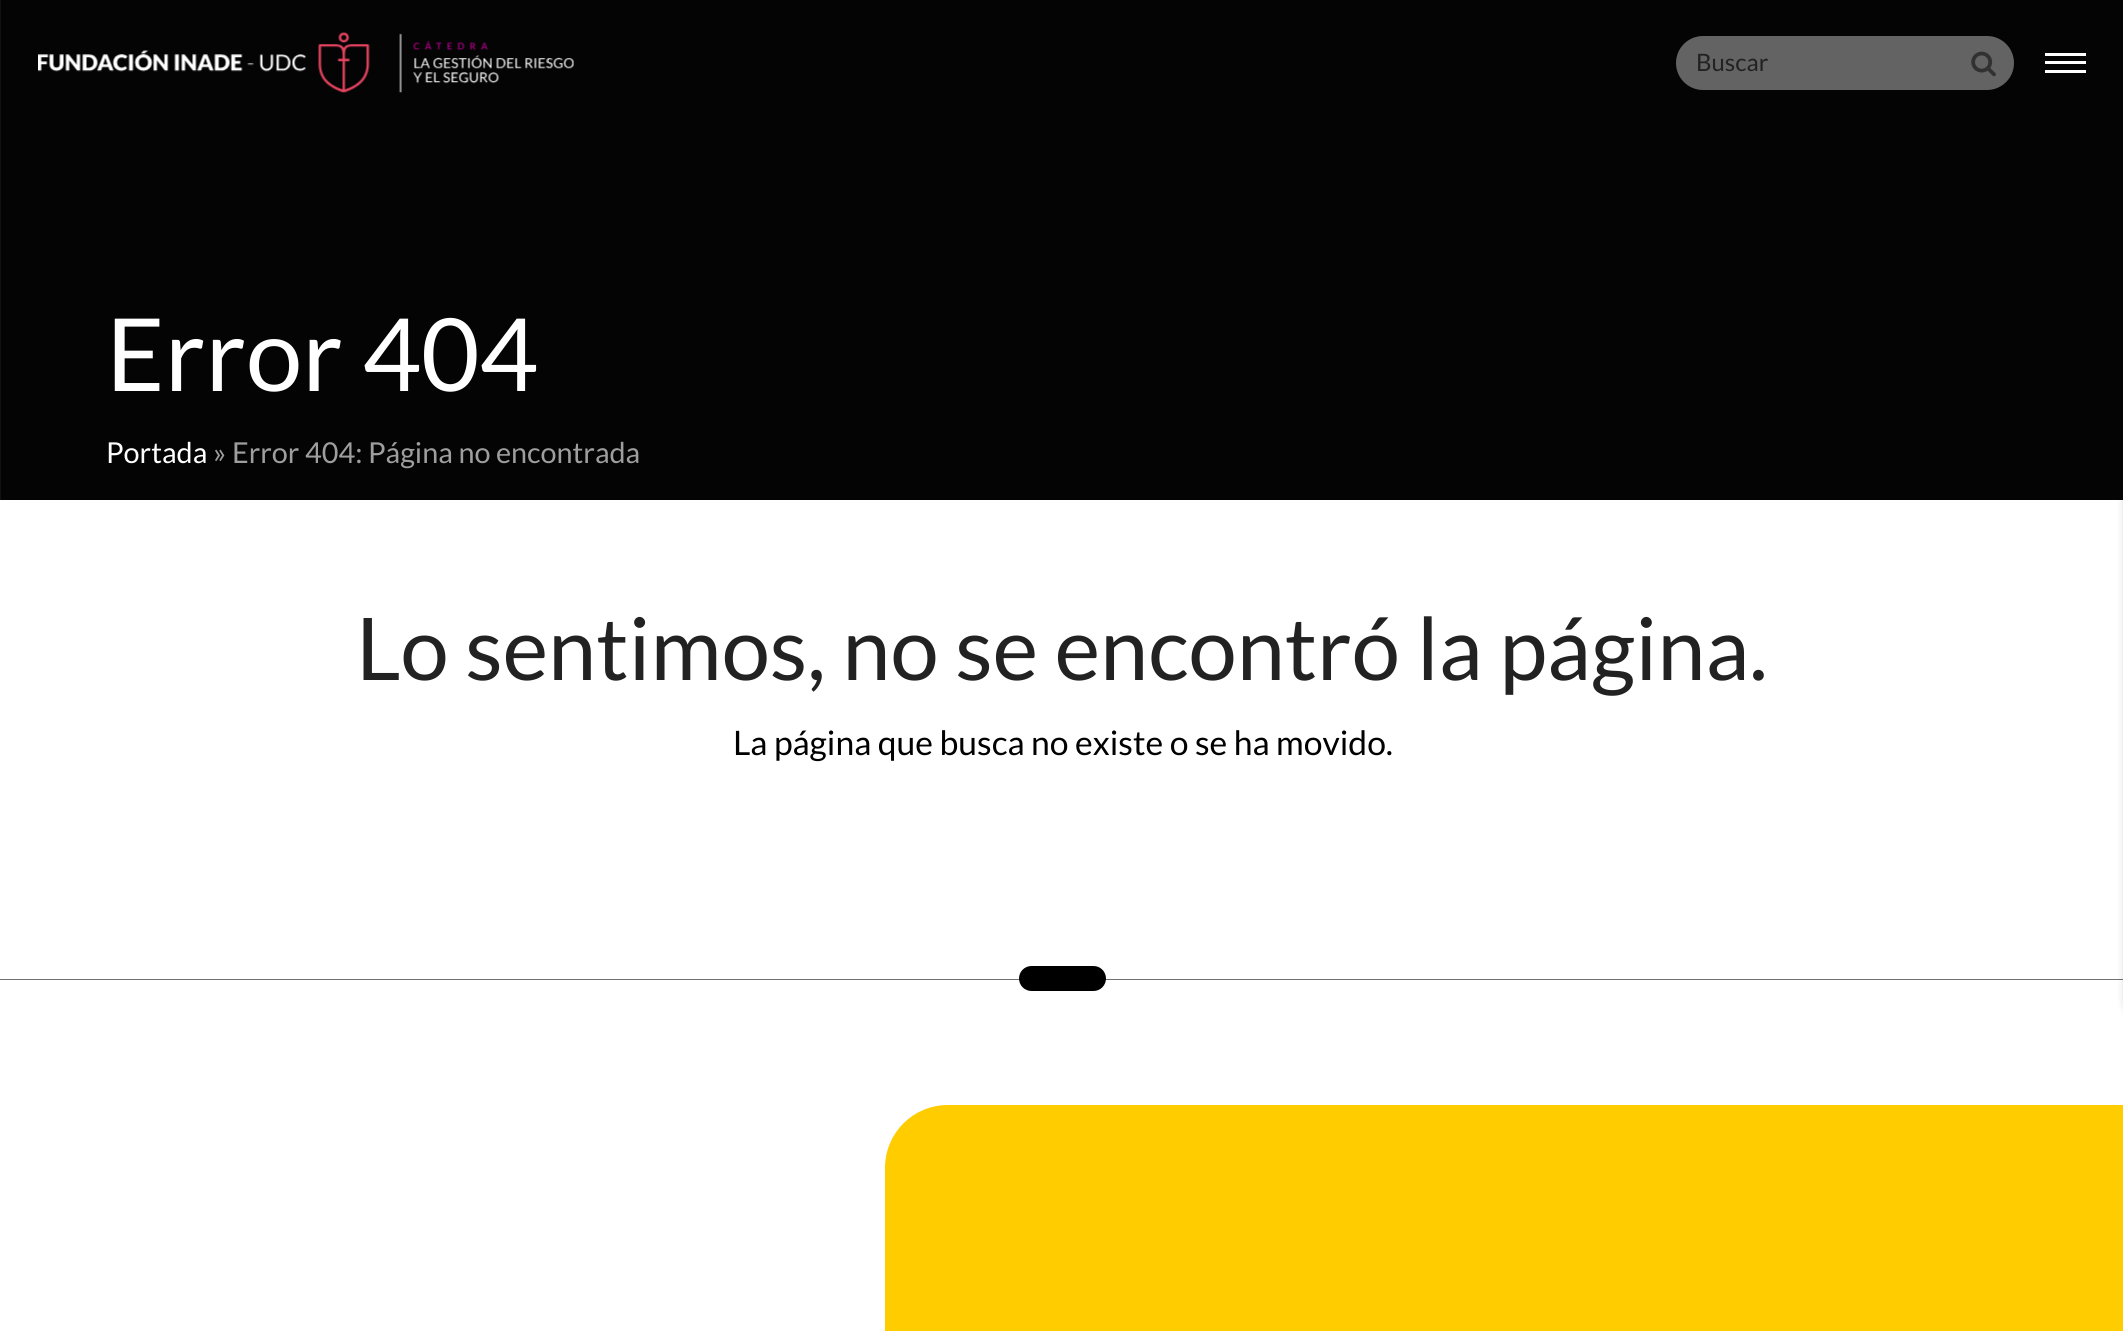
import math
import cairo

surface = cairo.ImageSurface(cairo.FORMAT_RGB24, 2123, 1331)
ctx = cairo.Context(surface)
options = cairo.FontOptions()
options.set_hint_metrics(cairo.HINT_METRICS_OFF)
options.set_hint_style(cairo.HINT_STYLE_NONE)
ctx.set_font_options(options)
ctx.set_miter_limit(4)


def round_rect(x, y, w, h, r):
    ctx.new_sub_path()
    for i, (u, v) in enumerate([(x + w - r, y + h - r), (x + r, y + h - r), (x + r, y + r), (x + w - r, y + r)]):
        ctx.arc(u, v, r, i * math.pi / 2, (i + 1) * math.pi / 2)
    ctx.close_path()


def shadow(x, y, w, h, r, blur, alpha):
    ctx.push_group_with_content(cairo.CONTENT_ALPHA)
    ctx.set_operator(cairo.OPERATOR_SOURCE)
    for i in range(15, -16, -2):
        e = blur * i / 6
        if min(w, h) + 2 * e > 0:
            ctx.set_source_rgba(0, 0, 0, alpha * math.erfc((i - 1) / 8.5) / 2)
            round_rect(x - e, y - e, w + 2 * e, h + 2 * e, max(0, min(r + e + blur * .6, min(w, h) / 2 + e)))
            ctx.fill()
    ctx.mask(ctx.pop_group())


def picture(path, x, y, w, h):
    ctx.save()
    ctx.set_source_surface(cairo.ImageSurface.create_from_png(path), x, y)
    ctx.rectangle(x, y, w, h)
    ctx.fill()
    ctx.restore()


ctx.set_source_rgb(1, 1, 1)
ctx.paint()
ctx.set_source_rgb(0.016, 0.016, 0.016)
ctx.rectangle(1, 0, 2122, 500)
ctx.fill()
picture("img1.png", 38, 32, 536, 61)
ctx.set_source_rgb(0.388, 0.388, 0.388)
round_rect(1676, 36, 338, 54, 27)
ctx.fill()
ctx.select_font_face("Lato")
ctx.set_font_size(24)
ctx.set_source_rgb(0.133, 0.133, 0.133)
ctx.move_to(1696, 71)
ctx.show_text("Buscar")
picture("img2.png", 1971, 51, 25, 26)
ctx.set_source_rgb(1, 1, 1)
ctx.rectangle(2045, 61, 41, 3)
ctx.fill()
ctx.rectangle(2045, 53, 41, 3)
ctx.fill()
ctx.rectangle(2045, 70, 41, 3)
ctx.fill()
ctx.set_source_rgb(0.067, 0.067, 0.067)
ctx.rectangle(0, 0, 1, 500)
ctx.fill()
ctx.set_font_size(101)
ctx.set_source_rgb(1, 1, 1)
ctx.move_to(106, 391)
ctx.show_text("Error 404")
ctx.set_font_size(28.8)
ctx.move_to(106, 463)
ctx.show_text("Portada")
ctx.set_source_rgb(0.62, 0.62, 0.62)
ctx.move_to(213, 463)
ctx.show_text("» Error 404: Página no encontrada")
ctx.set_font_size(86.5)
ctx.set_source_rgb(0.133, 0.133, 0.133)
ctx.move_to(356, 680)
ctx.show_text("Lo sentimos, no se encontró la página.")
ctx.set_font_size(33.7)
ctx.set_source_rgb(0, 0, 0)
ctx.move_to(733, 755)
ctx.show_text("La página que busca no existe o se ha movido.")
ctx.set_source_rgb(0.439, 0.439, 0.439)
ctx.rectangle(0, 979, 2123, 1)
ctx.fill()
ctx.set_source_rgb(0, 0, 0)
round_rect(1019, 966, 87, 25, 12.5)
ctx.fill()
ctx.set_source_rgb(1, 0.8, 0)
ctx.new_path()
ctx.move_to(948, 1105)
ctx.line_to(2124, 1105)
ctx.line_to(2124, 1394)
ctx.line_to(948, 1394)
ctx.curve_to(913, 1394, 885, 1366, 885, 1331)
ctx.line_to(885, 1168)
ctx.curve_to(885, 1133, 913, 1105, 948, 1105)
ctx.close_path()
ctx.fill()
ctx.set_source_rgb(0, 0, 0)
shadow(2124, 4, 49, 1019, 38, 4, 0.16)
surface.write_to_png("page.png")
